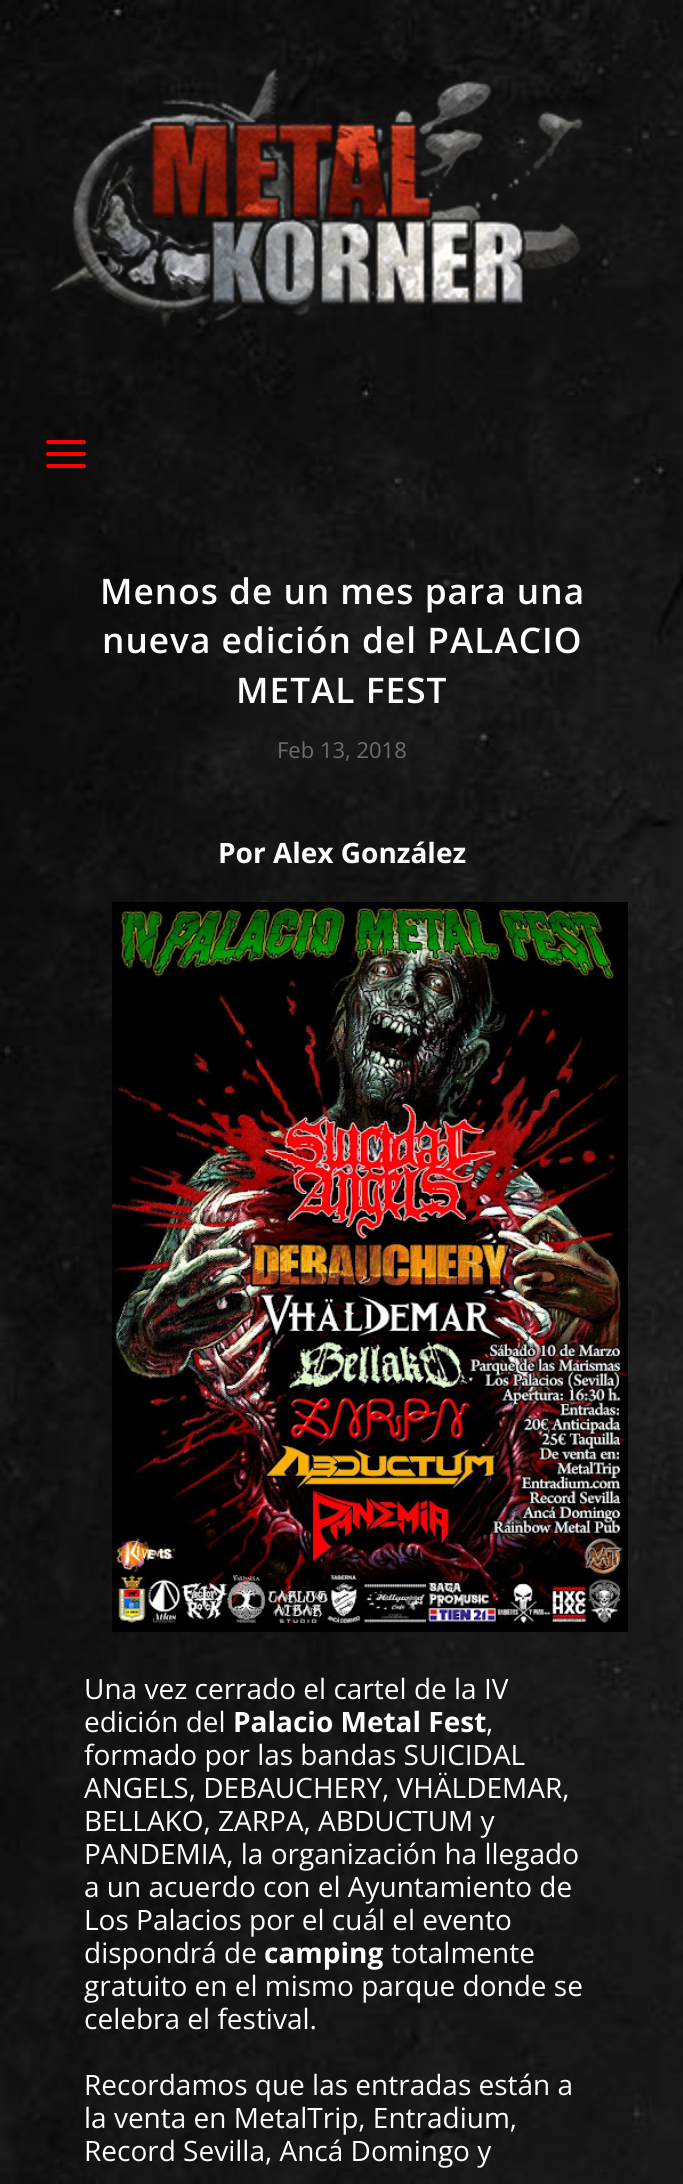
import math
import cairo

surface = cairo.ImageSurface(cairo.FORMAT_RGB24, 683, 2184)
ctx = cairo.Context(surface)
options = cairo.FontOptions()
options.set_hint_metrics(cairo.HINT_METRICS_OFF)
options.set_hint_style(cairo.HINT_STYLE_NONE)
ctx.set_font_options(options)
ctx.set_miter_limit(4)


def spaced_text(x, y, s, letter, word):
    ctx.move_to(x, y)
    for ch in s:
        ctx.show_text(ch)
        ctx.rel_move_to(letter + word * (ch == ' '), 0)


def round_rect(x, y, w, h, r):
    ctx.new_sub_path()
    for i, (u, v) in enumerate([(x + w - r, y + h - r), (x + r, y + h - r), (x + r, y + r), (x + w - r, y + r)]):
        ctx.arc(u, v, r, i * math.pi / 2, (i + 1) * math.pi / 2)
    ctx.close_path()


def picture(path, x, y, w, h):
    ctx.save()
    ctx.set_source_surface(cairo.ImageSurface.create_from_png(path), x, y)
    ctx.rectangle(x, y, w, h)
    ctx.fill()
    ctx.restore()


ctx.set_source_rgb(1, 1, 1)
ctx.paint()
picture("img1.png", 0, 0, 683, 2184)
picture("img2.png", 50, 68, 533, 260)
ctx.set_source_rgb(1, 0, 0)
round_rect(46, 440, 40, 4, 2)
ctx.fill()
round_rect(46, 452, 40, 4, 2)
ctx.fill()
round_rect(46, 464, 40, 4, 2)
ctx.fill()
ctx.select_font_face("Open Sans SemiBold")
ctx.set_font_size(35.25)
ctx.set_source_rgb(1, 1, 1)
spaced_text(100, 604, "Menos de un mes para una", 1, 0)
spaced_text(102, 653, "nueva edición del PALACIO", 1, 0)
spaced_text(236, 703, "METAL FEST", 1, 0)
ctx.select_font_face("Open Sans")
ctx.set_font_size(22)
ctx.set_source_rgb(0.427, 0.427, 0.427)
ctx.move_to(277, 758)
ctx.show_text("Feb 13, 2018")
ctx.select_font_face("Open Sans", cairo.FONT_SLANT_NORMAL, cairo.FONT_WEIGHT_BOLD)
ctx.set_font_size(28)
ctx.set_source_rgb(1, 1, 1)
ctx.move_to(218, 863)
ctx.show_text("Por Alex González")
picture("img3.png", 112, 902, 516, 730)
ctx.select_font_face("Open Sans")
ctx.move_to(84, 1699)
ctx.show_text("Una vez cerrado el cartel de la IV")
ctx.move_to(84, 1732)
ctx.show_text("edición del")
ctx.select_font_face("Open Sans", cairo.FONT_SLANT_NORMAL, cairo.FONT_WEIGHT_BOLD)
ctx.move_to(233, 1732)
ctx.show_text("Palacio Metal Fest")
ctx.select_font_face("Open Sans")
ctx.move_to(486, 1732)
ctx.show_text(",")
ctx.move_to(84, 1765)
ctx.show_text("formado por las bandas SUICIDAL")
ctx.move_to(84, 1798)
ctx.show_text("ANGELS, DEBAUCHERY, VHÄLDEMAR,")
ctx.move_to(84, 1831)
ctx.show_text("BELLAKO, ZARPA, ABDUCTUM y")
ctx.move_to(84, 1864)
ctx.show_text("PANDEMIA, la organización ha llegado")
ctx.move_to(84, 1897)
ctx.show_text("a un acuerdo con el Ayuntamiento de")
ctx.move_to(84, 1930)
ctx.show_text("Los Palacios por el cuál el evento")
ctx.move_to(84, 1963)
ctx.show_text("dispondrá de")
ctx.select_font_face("Open Sans", cairo.FONT_SLANT_NORMAL, cairo.FONT_WEIGHT_BOLD)
ctx.move_to(264, 1963)
ctx.show_text("camping")
ctx.select_font_face("Open Sans")
ctx.move_to(391, 1963)
ctx.show_text("totalmente")
ctx.move_to(84, 1996)
ctx.show_text("gratuito en el mismo parque donde se")
ctx.move_to(84, 2029)
ctx.show_text("celebra el festival.")
ctx.move_to(84, 2095)
ctx.show_text("Recordamos que las entradas están a")
ctx.move_to(84, 2128)
ctx.show_text("la venta en MetalTrip, Entradium,")
ctx.move_to(84, 2161)
ctx.show_text("Record Sevilla, Ancá Domingo y")
surface.write_to_png("page.png")
